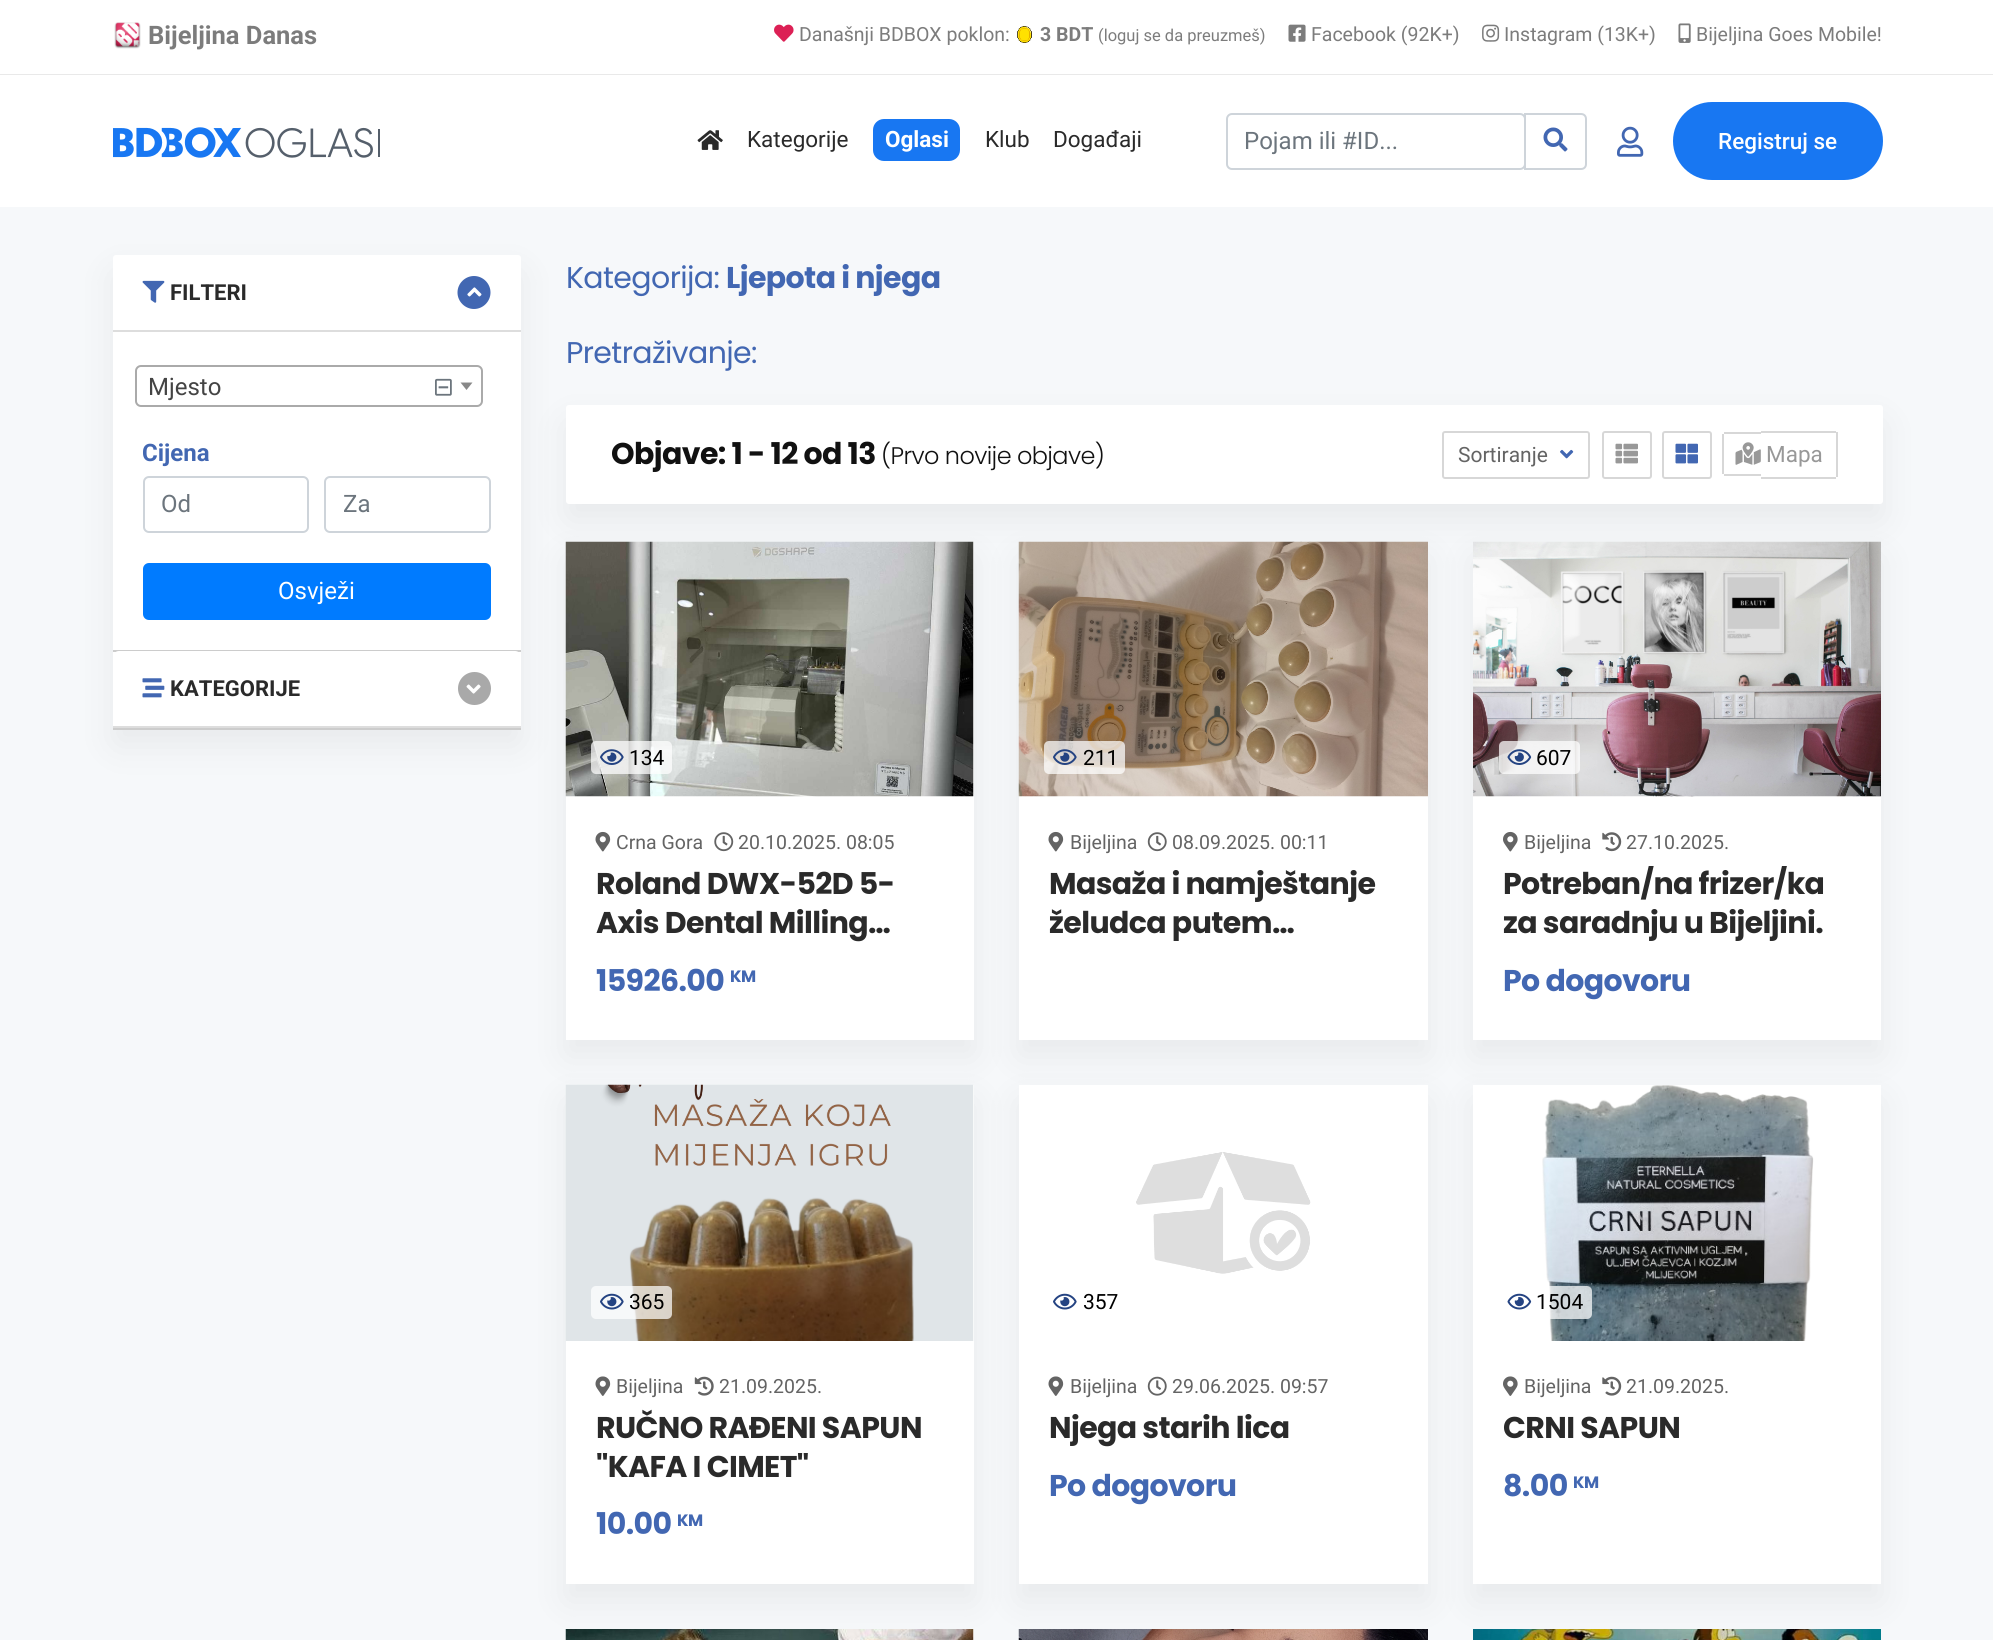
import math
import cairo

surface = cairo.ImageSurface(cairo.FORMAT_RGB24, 1993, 1640)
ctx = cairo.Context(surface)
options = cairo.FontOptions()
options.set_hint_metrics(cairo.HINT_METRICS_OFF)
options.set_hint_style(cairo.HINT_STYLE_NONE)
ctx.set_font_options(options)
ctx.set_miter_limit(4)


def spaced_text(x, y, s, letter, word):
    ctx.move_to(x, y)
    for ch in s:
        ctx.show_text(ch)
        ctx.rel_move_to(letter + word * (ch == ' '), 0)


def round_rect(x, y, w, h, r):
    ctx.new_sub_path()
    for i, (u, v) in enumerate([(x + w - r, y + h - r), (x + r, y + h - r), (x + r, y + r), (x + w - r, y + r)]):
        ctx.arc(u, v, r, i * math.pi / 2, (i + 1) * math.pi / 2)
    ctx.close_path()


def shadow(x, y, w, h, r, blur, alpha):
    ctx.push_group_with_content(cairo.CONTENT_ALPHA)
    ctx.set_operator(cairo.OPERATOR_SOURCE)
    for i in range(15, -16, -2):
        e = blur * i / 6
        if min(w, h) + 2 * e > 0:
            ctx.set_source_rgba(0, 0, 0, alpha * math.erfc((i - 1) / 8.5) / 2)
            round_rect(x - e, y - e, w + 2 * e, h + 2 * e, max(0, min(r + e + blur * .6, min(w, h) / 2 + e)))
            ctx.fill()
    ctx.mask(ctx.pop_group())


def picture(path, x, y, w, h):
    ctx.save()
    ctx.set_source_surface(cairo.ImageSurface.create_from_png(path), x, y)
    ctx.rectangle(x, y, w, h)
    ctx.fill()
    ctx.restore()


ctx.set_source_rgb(0.961, 0.969, 0.98)
ctx.paint()
ctx.set_source_rgb(1, 1, 1)
ctx.rectangle(0, 0, 1993, 74)
ctx.fill()
ctx.set_source_rgb(0.914, 0.914, 0.914)
ctx.rectangle(0, 74, 1993, 1)
ctx.fill()
picture("img1.png", 114, 22, 27, 27)
ctx.select_font_face("Roboto", cairo.FONT_SLANT_NORMAL, cairo.FONT_WEIGHT_BOLD)
ctx.set_font_size(25.5)
ctx.set_source_rgb(0.486, 0.486, 0.486)
ctx.move_to(148, 44)
ctx.show_text("Bijeljina Danas")
picture("img2.png", 774, 24, 20, 18)
ctx.select_font_face("Roboto")
ctx.set_font_size(19.5)
ctx.move_to(799, 41)
ctx.show_text("Današnji BDBOX poklon:")
picture("img3.png", 1017, 26, 15, 17)
ctx.select_font_face("Roboto", cairo.FONT_SLANT_NORMAL, cairo.FONT_WEIGHT_BOLD)
ctx.move_to(1040, 41)
ctx.show_text("3 BDT")
ctx.select_font_face("Roboto")
ctx.set_font_size(16.5)
ctx.move_to(1098, 41)
ctx.show_text("(loguj se da preuzmeš)")
picture("img4.png", 1288, 24, 18, 18)
ctx.set_font_size(19.5)
ctx.move_to(1311, 41)
ctx.show_text("Facebook (92K+)")
picture("img5.png", 1482, 24, 18, 18)
ctx.move_to(1504, 41)
ctx.show_text("Instagram (13K+)")
picture("img6.png", 1678, 23, 13, 20)
ctx.move_to(1696, 41)
ctx.show_text("Bijeljina Goes Mobile!")
ctx.set_source_rgb(1, 1, 1)
ctx.rectangle(0, 75, 1993, 132)
ctx.fill()
picture("img7.png", 113, 127, 267, 31)
picture("img8.png", 697, 130, 26, 20)
ctx.set_font_size(22.5)
ctx.set_source_rgb(0.165, 0.165, 0.165)
ctx.move_to(747, 147)
ctx.show_text("Kategorije")
ctx.set_source_rgb(0.094, 0.467, 0.949)
round_rect(873, 119, 87, 42, 11)
ctx.fill()
ctx.select_font_face("Roboto", cairo.FONT_SLANT_NORMAL, cairo.FONT_WEIGHT_BOLD)
ctx.set_source_rgb(1, 1, 1)
ctx.move_to(885, 147)
ctx.show_text("Oglasi")
ctx.select_font_face("Roboto")
ctx.set_source_rgb(0.165, 0.165, 0.165)
ctx.move_to(985, 147)
ctx.show_text("Klub")
ctx.move_to(1053, 147)
ctx.show_text("Događaji")
round_rect(1227, 114, 298, 55, 5)
ctx.set_source_rgb(0.808, 0.831, 0.855)
ctx.stroke()
ctx.set_font_size(24)
ctx.set_source_rgb(0.424, 0.459, 0.49)
ctx.move_to(1244, 149)
ctx.show_text("Pojam ili #ID...")
ctx.new_path()
ctx.move_to(1525, 114)
ctx.line_to(1581, 114)
ctx.curve_to(1584, 114, 1586, 116, 1586, 119)
ctx.line_to(1586, 164)
ctx.curve_to(1586, 167, 1584, 169, 1581, 169)
ctx.line_to(1525, 169)
ctx.close_path()
ctx.set_source_rgb(0.808, 0.831, 0.855)
ctx.stroke()
picture("img9.png", 1543, 127, 25, 25)
picture("img10.png", 1617, 126, 27, 31)
ctx.set_source_rgb(0.094, 0.467, 0.949)
round_rect(1673, 102, 210, 78, 39)
ctx.fill()
ctx.select_font_face("Roboto Medium")
ctx.set_font_size(22.5)
ctx.set_source_rgb(1, 1, 1)
ctx.move_to(1718, 149)
ctx.show_text("Registruj se")
ctx.set_source_rgb(0, 0, 0)
shadow(113, 272, 408, 474, 3, 19, 0.06)
ctx.set_source_rgb(1, 1, 1)
round_rect(113, 255, 408, 474, 3)
ctx.fill()
ctx.set_source_rgb(0.8, 0.8, 0.8)
ctx.rectangle(113, 728, 408, 2)
ctx.fill()
ctx.set_source_rgb(0.867, 0.867, 0.867)
ctx.rectangle(113, 330, 408, 2)
ctx.fill()
picture("img11.png", 142, 280, 23, 23)
ctx.select_font_face("Roboto", cairo.FONT_SLANT_NORMAL, cairo.FONT_WEIGHT_BOLD)
ctx.set_font_size(22)
ctx.set_source_rgb(0.165, 0.165, 0.165)
ctx.move_to(170, 300)
ctx.show_text("FILTERI")
ctx.set_source_rgb(0.259, 0.404, 0.698)
ctx.new_path()
ctx.move_to(474, 309)
ctx.curve_to(465, 309, 457.5, 301.5, 457.5, 292.5)
ctx.curve_to(457.5, 283.5, 465, 276, 474, 276)
ctx.curve_to(483, 276, 490.5, 283.5, 490.5, 292.5)
ctx.curve_to(490.5, 301.5, 483, 309, 474, 309)
ctx.close_path()
ctx.fill()
picture("img12.png", 467, 287, 15, 10)
ctx.set_source_rgb(0.8, 0.8, 0.8)
ctx.rectangle(113, 650, 408, 2)
ctx.fill()
round_rect(136, 366, 346, 40, 5)
ctx.set_source_rgb(0.667, 0.667, 0.667)
ctx.stroke()
ctx.select_font_face("Roboto")
ctx.set_font_size(24)
ctx.set_source_rgb(0.267, 0.267, 0.267)
ctx.move_to(148, 395)
ctx.show_text("Mjesto")
picture("img13.png", 435, 378, 17, 18)
ctx.set_source_rgb(0.533, 0.533, 0.533)
ctx.new_path()
ctx.move_to(460.5, 382.5)
ctx.line_to(472.5, 382.5)
ctx.line_to(466.5, 390)
ctx.close_path()
ctx.fill()
ctx.select_font_face("Roboto", cairo.FONT_SLANT_NORMAL, cairo.FONT_WEIGHT_BOLD)
ctx.set_source_rgb(0.259, 0.404, 0.698)
ctx.move_to(142, 461)
ctx.show_text("Cijena")
round_rect(144, 477, 164, 55, 5)
ctx.set_source_rgb(0.808, 0.831, 0.855)
ctx.stroke()
ctx.select_font_face("Roboto")
ctx.set_source_rgb(0.424, 0.459, 0.49)
ctx.move_to(161, 512)
ctx.show_text("Od")
round_rect(325, 477, 165, 55, 5)
ctx.set_source_rgb(0.808, 0.831, 0.855)
ctx.stroke()
ctx.set_source_rgb(0.424, 0.459, 0.49)
ctx.move_to(343, 512)
ctx.show_text("Za")
ctx.set_source_rgb(0, 0.482, 1)
round_rect(144, 564, 346, 55, 5)
ctx.fill_preserve()
ctx.stroke()
ctx.set_source_rgb(1, 1, 1)
ctx.move_to(278, 599)
ctx.show_text("Osvježi")
round_rect(113, 651, 408, 77, 6)
ctx.fill()
ctx.set_source_rgb(0.867, 0.867, 0.867)
ctx.rectangle(113, 726, 408, 2)
ctx.fill()
picture("img14.png", 142, 678, 23, 20)
ctx.select_font_face("Roboto", cairo.FONT_SLANT_NORMAL, cairo.FONT_WEIGHT_BOLD)
ctx.set_font_size(22)
ctx.set_source_rgb(0.165, 0.165, 0.165)
ctx.move_to(170, 696)
ctx.show_text("KATEGORIJE")
ctx.set_source_rgb(0.663, 0.663, 0.663)
ctx.new_path()
ctx.arc(474.5, 688.5, 16.5, 0, 2 * math.pi)
ctx.fill()
picture("img15.png", 466, 684, 15, 10)
ctx.select_font_face("Poppins")
ctx.set_font_size(30)
ctx.set_source_rgb(0.259, 0.404, 0.698)
spaced_text(566, 288, "Kategorija:", -0.6, 0)
ctx.select_font_face("Poppins", cairo.FONT_SLANT_NORMAL, cairo.FONT_WEIGHT_BOLD)
spaced_text(726, 288, "Ljepota i njega", -0.6, 0)
ctx.set_source_rgb(0, 0, 0)
shadow(566, 422, 1317, 99, 3, 19, 0.06)
ctx.select_font_face("Poppins")
ctx.set_source_rgb(0.259, 0.404, 0.698)
spaced_text(566, 363, "Pretraživanje:", -0.6, 0)
ctx.set_source_rgb(1, 1, 1)
round_rect(566, 405, 1317, 99, 3)
ctx.fill()
ctx.select_font_face("Poppins", cairo.FONT_SLANT_NORMAL, cairo.FONT_WEIGHT_BOLD)
ctx.set_source_rgb(0.067, 0.067, 0.067)
spaced_text(611, 464, "Objave: 1 - 12 od 13", -0.6, 0)
ctx.select_font_face("Poppins Light")
ctx.set_font_size(24)
spaced_text(881, 464, "(Prvo novije objave)", -0.6, 0)
round_rect(1443, 432, 146, 46, 2)
ctx.set_source_rgb(0.843, 0.843, 0.843)
ctx.stroke()
ctx.select_font_face("Roboto")
ctx.set_font_size(21)
ctx.set_source_rgb(0.392, 0.392, 0.392)
ctx.move_to(1458, 462)
ctx.show_text("Sortiranje")
picture("img16.png", 1560, 449, 14, 10)
round_rect(1603, 432, 48, 46, 2)
ctx.set_source_rgb(0.843, 0.843, 0.843)
ctx.stroke()
picture("img17.png", 1615, 443, 23, 21)
round_rect(1663, 432, 48, 46, 2)
ctx.stroke()
picture("img18.png", 1675, 443, 23, 21)
ctx.rectangle(1724, 432, 37, 2)
ctx.fill()
ctx.rectangle(1724, 474, 37, 2)
ctx.fill()
ctx.rectangle(1722, 434, 2, 40)
ctx.fill()
ctx.rectangle(1761, 431, 75, 2)
ctx.fill()
ctx.rectangle(1836, 432, 2, 45)
ctx.fill()
ctx.rectangle(1761, 477, 75, 2)
ctx.fill()
picture("img19.png", 1735, 442, 26, 23)
ctx.set_font_size(22.5)
ctx.set_source_rgb(0.596, 0.596, 0.596)
ctx.move_to(1766, 462)
ctx.show_text("Mapa")
ctx.set_source_rgb(0, 0, 0)
shadow(566, 558, 408, 498, 0, 19, 0.06)
ctx.set_source_rgb(1, 1, 1)
ctx.rectangle(566, 542, 408, 498)
ctx.fill()
picture("img20.png", 565, 541, 409, 256)
ctx.set_source_rgba(1, 1, 1, 0.72)
round_rect(591, 741, 81, 33, 5)
ctx.fill()
picture("img21.png", 600, 749, 24, 16)
ctx.set_font_size(21)
ctx.set_source_rgb(0, 0, 0)
ctx.move_to(629, 765)
ctx.show_text("134")
picture("img22.png", 595, 831, 16, 21)
ctx.set_font_size(19.5)
ctx.set_source_rgb(0.392, 0.392, 0.392)
ctx.move_to(616, 849)
ctx.show_text("Crna Gora")
picture("img23.png", 714, 832, 20, 20)
ctx.move_to(738, 849)
ctx.show_text("20.10.2025. 08:05")
ctx.select_font_face("Poppins", cairo.FONT_SLANT_NORMAL, cairo.FONT_WEIGHT_BOLD)
ctx.set_font_size(30)
ctx.set_source_rgb(0.165, 0.165, 0.165)
spaced_text(596, 894, "Roland DWX-52D 5-", -0.6, 0)
spaced_text(596, 933, "Axis Dental Milling…", -0.6, 0)
ctx.set_source_rgb(0.259, 0.404, 0.698)
spaced_text(596, 991, "15926.00", -0.6, 0)
ctx.set_font_size(16.5)
spaced_text(730, 982, "KM", -0.6, 0)
ctx.set_source_rgb(0, 0, 0)
shadow(1019, 558, 409, 498, 0, 19, 0.06)
ctx.set_source_rgb(1, 1, 1)
ctx.rectangle(1019, 796, 409, 244)
ctx.fill()
picture("img24.png", 1018, 541, 410, 256)
ctx.set_source_rgba(1, 1, 1, 0.72)
round_rect(1044, 741, 81, 33, 5)
ctx.fill()
picture("img25.png", 1053, 749, 24, 16)
ctx.select_font_face("Roboto")
ctx.set_font_size(21)
ctx.set_source_rgb(0, 0, 0)
ctx.move_to(1083, 765)
ctx.show_text("211")
picture("img22.png", 1048, 831, 16, 21)
ctx.set_font_size(19.5)
ctx.set_source_rgb(0.392, 0.392, 0.392)
ctx.move_to(1070, 849)
ctx.show_text("Bijeljina")
picture("img26.png", 1147, 832, 20, 20)
ctx.move_to(1172, 849)
ctx.show_text("08.09.2025. 00:11")
ctx.select_font_face("Poppins", cairo.FONT_SLANT_NORMAL, cairo.FONT_WEIGHT_BOLD)
ctx.set_font_size(30)
ctx.set_source_rgb(0.165, 0.165, 0.165)
spaced_text(1049, 894, "Masaža i namještanje", -0.6, 0)
spaced_text(1049, 933, "želudca putem…", -0.6, 0)
ctx.set_source_rgb(0, 0, 0)
shadow(1473, 558, 408, 498, 0, 19, 0.06)
ctx.set_source_rgb(1, 1, 1)
ctx.rectangle(1473, 796, 408, 244)
ctx.fill()
picture("img27.png", 1473, 541, 408, 256)
ctx.set_source_rgba(1, 1, 1, 0.72)
round_rect(1499, 741, 81, 33, 5)
ctx.fill()
picture("img28.png", 1507, 749, 25, 16)
ctx.select_font_face("Roboto")
ctx.set_font_size(21)
ctx.set_source_rgb(0, 0, 0)
ctx.move_to(1536, 765)
ctx.show_text("607")
picture("img29.png", 1503, 831, 15, 21)
ctx.set_font_size(19.5)
ctx.set_source_rgb(0.392, 0.392, 0.392)
ctx.move_to(1524, 849)
ctx.show_text("Bijeljina")
picture("img30.png", 1602, 832, 20, 20)
ctx.move_to(1626, 849)
ctx.show_text("27.10.2025.")
ctx.save()
ctx.rectangle(1503, 866, 348, 76)
ctx.clip()
ctx.select_font_face("Poppins", cairo.FONT_SLANT_NORMAL, cairo.FONT_WEIGHT_BOLD)
ctx.set_font_size(30)
ctx.set_source_rgb(0.165, 0.165, 0.165)
spaced_text(1503, 894, "Potreban/na frizer/ka", -0.6, 0)
ctx.restore()
ctx.select_font_face("Poppins", cairo.FONT_SLANT_NORMAL, cairo.FONT_WEIGHT_BOLD)
ctx.set_font_size(30)
ctx.set_source_rgb(0.165, 0.165, 0.165)
spaced_text(1503, 933, "za saradnju u Bijeljini.", -0.6, 0)
ctx.set_source_rgb(0.259, 0.404, 0.698)
spaced_text(1503, 991, "Po dogovoru", -0.6, 0)
ctx.set_source_rgb(0, 0, 0)
shadow(566, 1101, 408, 500, 0, 19, 0.06)
ctx.set_source_rgb(1, 1, 1)
ctx.rectangle(566, 1085, 408, 499)
ctx.fill()
picture("img31.png", 565, 1084, 409, 257)
ctx.set_source_rgba(1, 1, 1, 0.72)
round_rect(591, 1286, 81, 33, 5)
ctx.fill()
picture("img32.png", 600, 1293, 24, 17)
ctx.select_font_face("Roboto")
ctx.set_font_size(21)
ctx.set_source_rgb(0, 0, 0)
ctx.move_to(629, 1309)
ctx.show_text("365")
picture("img33.png", 595, 1376, 16, 20)
ctx.set_font_size(19.5)
ctx.set_source_rgb(0.392, 0.392, 0.392)
ctx.move_to(616, 1393)
ctx.show_text("Bijeljina")
picture("img34.png", 694, 1376, 20, 20)
ctx.move_to(719, 1393)
ctx.show_text("21.09.2025.")
ctx.select_font_face("Poppins", cairo.FONT_SLANT_NORMAL, cairo.FONT_WEIGHT_BOLD)
ctx.set_font_size(30)
ctx.set_source_rgb(0.165, 0.165, 0.165)
spaced_text(596, 1438, "RUČNO RAĐENI SAPUN", -0.6, 0)
spaced_text(596, 1477, "\"KAFA I CIMET\"", -0.6, 0)
ctx.set_source_rgb(0.259, 0.404, 0.698)
spaced_text(596, 1534, "10.00", -0.6, 0)
ctx.set_font_size(16.5)
spaced_text(677, 1526, "KM", -0.6, 0)
ctx.set_source_rgb(0, 0, 0)
shadow(1019, 1101, 409, 500, 0, 19, 0.06)
ctx.set_source_rgb(1, 1, 1)
ctx.rectangle(1019, 1085, 409, 499)
ctx.fill()
picture("img35.png", 1136, 1152, 175, 122)
picture("img36.png", 1053, 1293, 24, 17)
ctx.select_font_face("Roboto")
ctx.set_font_size(21)
ctx.set_source_rgb(0, 0, 0)
ctx.move_to(1083, 1309)
ctx.show_text("357")
picture("img33.png", 1048, 1376, 16, 20)
ctx.set_font_size(19.5)
ctx.set_source_rgb(0.392, 0.392, 0.392)
ctx.move_to(1070, 1393)
ctx.show_text("Bijeljina")
picture("img37.png", 1147, 1376, 20, 20)
ctx.move_to(1172, 1393)
ctx.show_text("29.06.2025. 09:57")
ctx.select_font_face("Poppins", cairo.FONT_SLANT_NORMAL, cairo.FONT_WEIGHT_BOLD)
ctx.set_font_size(30)
ctx.set_source_rgb(0.165, 0.165, 0.165)
spaced_text(1049, 1438, "Njega starih lica", -0.6, 0)
ctx.set_source_rgb(0.259, 0.404, 0.698)
spaced_text(1049, 1496, "Po dogovoru", -0.6, 0)
ctx.set_source_rgb(0, 0, 0)
shadow(1473, 1101, 408, 500, 0, 19, 0.06)
ctx.set_source_rgb(1, 1, 1)
ctx.rectangle(1473, 1085, 408, 499)
ctx.fill()
picture("img38.png", 1542, 1085, 272, 256)
ctx.set_source_rgba(1, 1, 1, 0.72)
round_rect(1499, 1286, 93, 33, 5)
ctx.fill()
picture("img39.png", 1507, 1293, 25, 17)
ctx.select_font_face("Roboto")
ctx.set_font_size(21)
ctx.set_source_rgb(0, 0, 0)
ctx.move_to(1536, 1309)
ctx.show_text("1504")
picture("img40.png", 1503, 1376, 15, 20)
ctx.set_font_size(19.5)
ctx.set_source_rgb(0.392, 0.392, 0.392)
ctx.move_to(1524, 1393)
ctx.show_text("Bijeljina")
picture("img41.png", 1602, 1376, 20, 20)
ctx.move_to(1626, 1393)
ctx.show_text("21.09.2025.")
ctx.select_font_face("Poppins", cairo.FONT_SLANT_NORMAL, cairo.FONT_WEIGHT_BOLD)
ctx.set_font_size(30)
ctx.set_source_rgb(0.165, 0.165, 0.165)
spaced_text(1503, 1438, "CRNI SAPUN", -0.6, 0)
ctx.set_source_rgb(0.259, 0.404, 0.698)
spaced_text(1503, 1496, "8.00", -0.6, 0)
ctx.set_font_size(16.5)
spaced_text(1573, 1488, "KM", -0.6, 0)
ctx.set_source_rgb(1, 1, 1)
ctx.rectangle(973, 1629, 1, 11)
ctx.fill()
picture("img42.png", 565, 1629, 409, 11)
picture("img43.png", 1018, 1629, 410, 11)
picture("img44.png", 1473, 1629, 408, 11)
surface.write_to_png("page.png")
